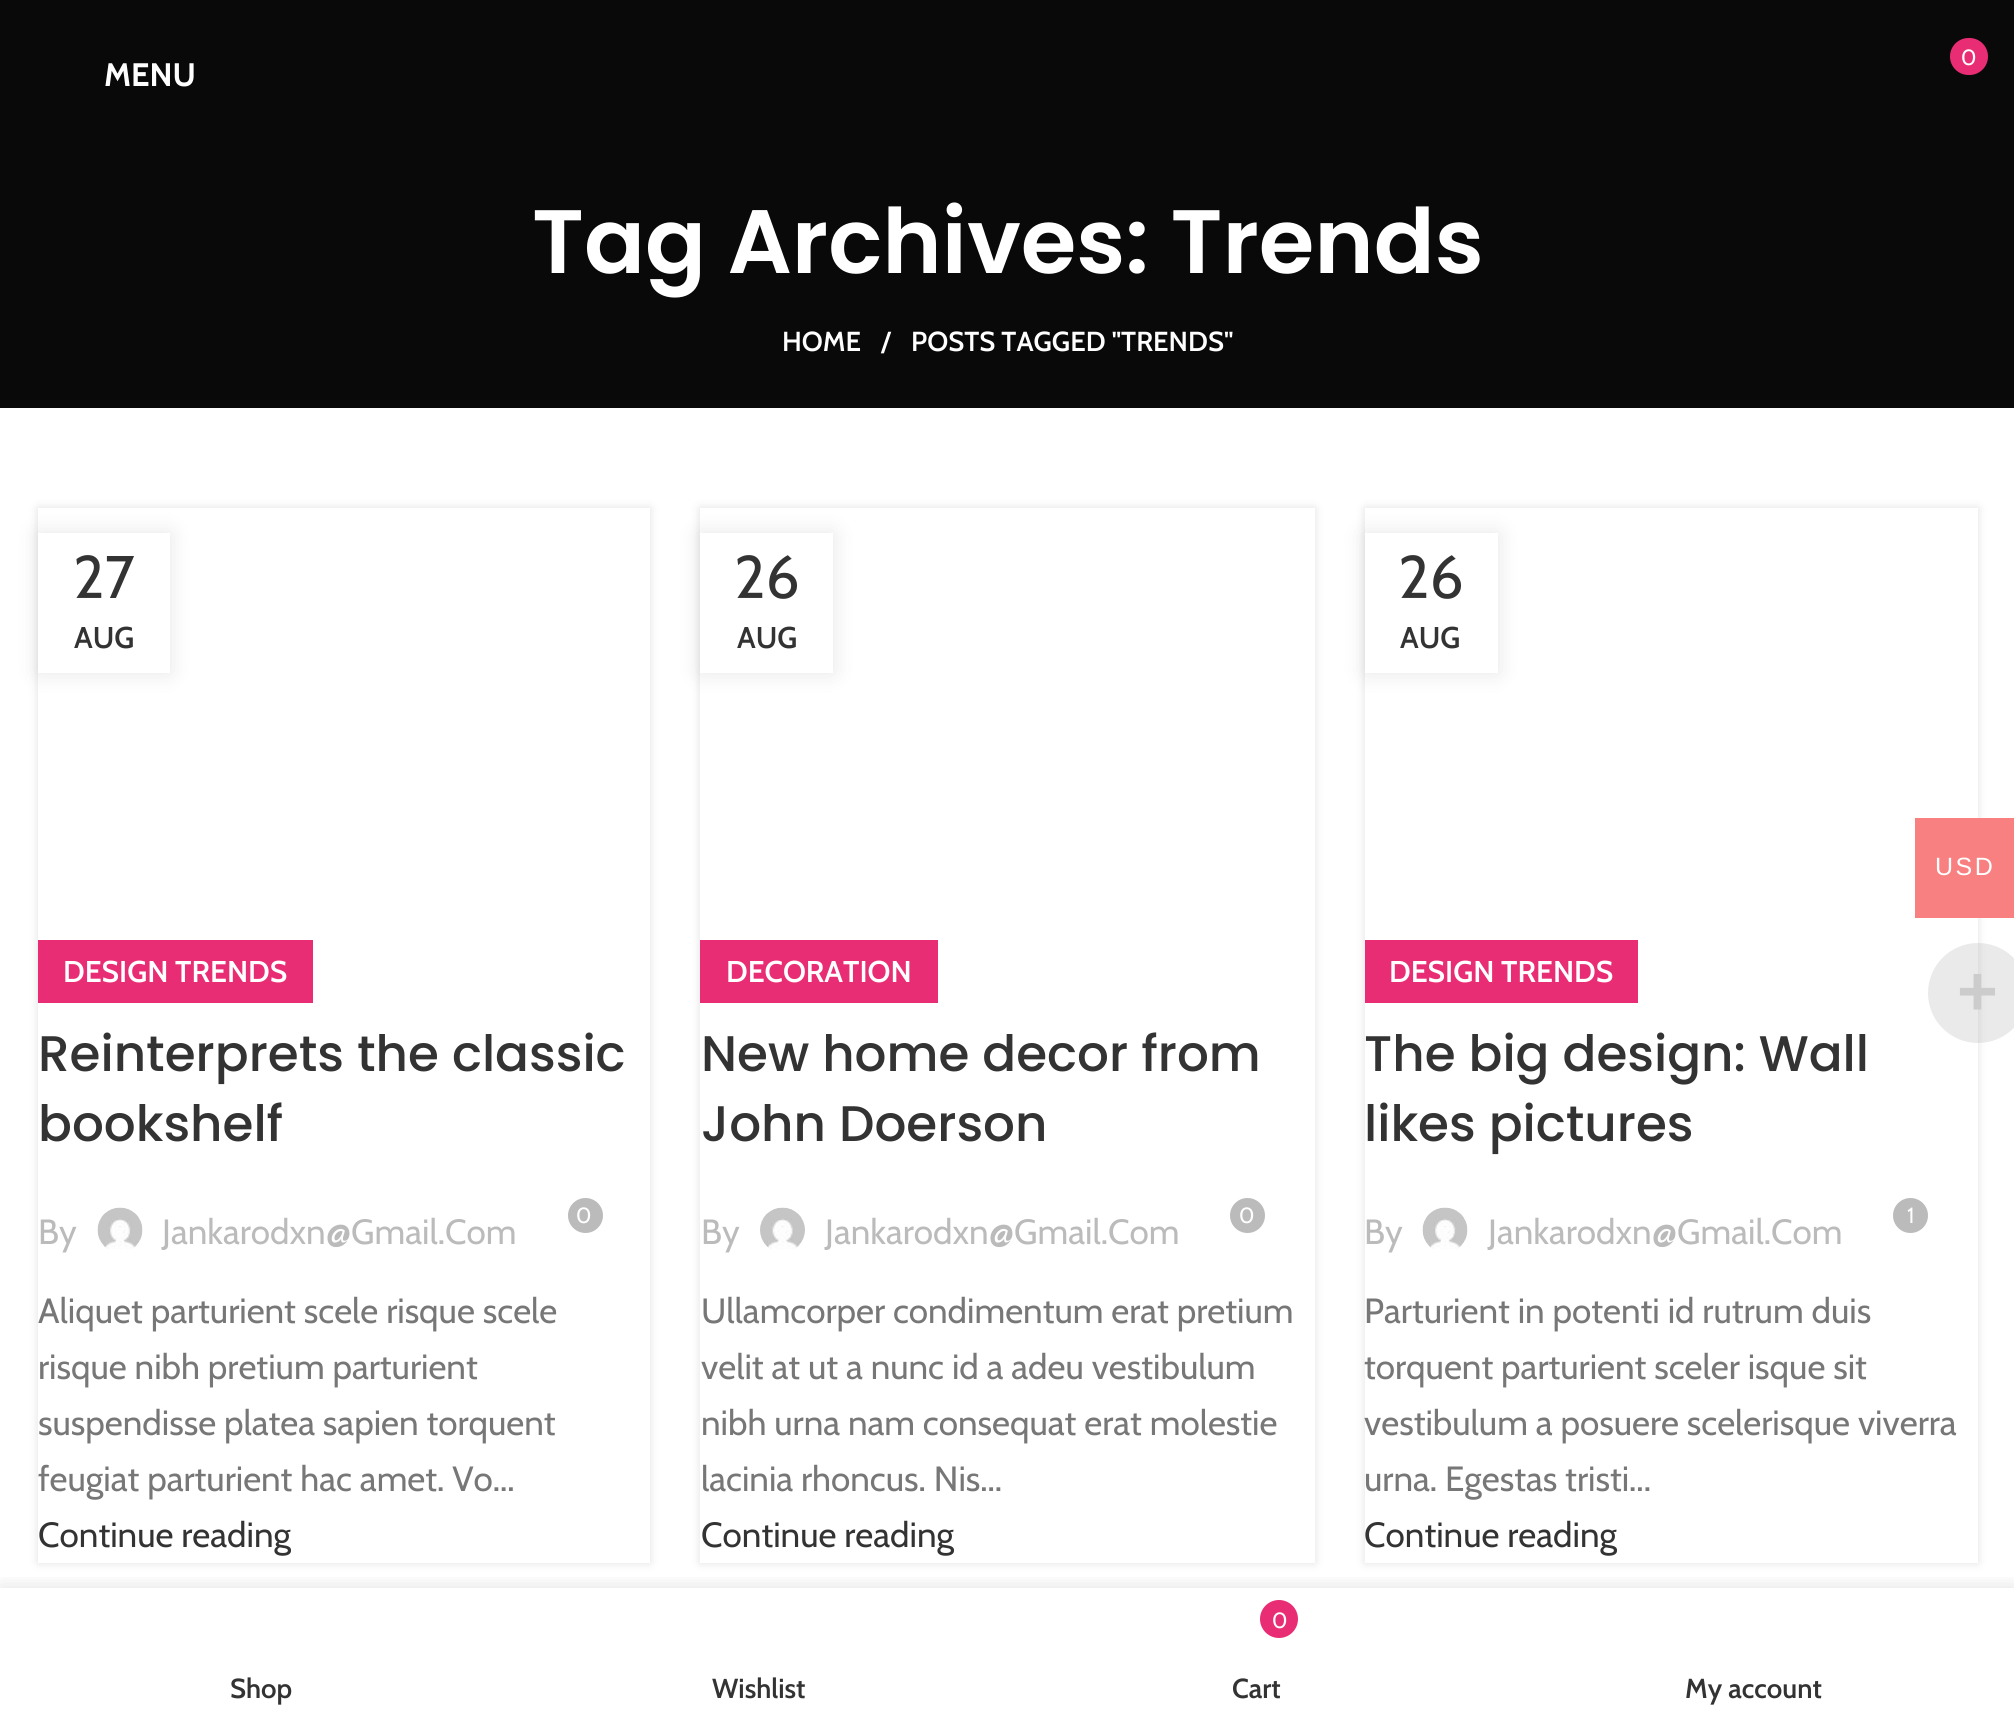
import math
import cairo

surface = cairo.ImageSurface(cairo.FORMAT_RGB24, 2014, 1723)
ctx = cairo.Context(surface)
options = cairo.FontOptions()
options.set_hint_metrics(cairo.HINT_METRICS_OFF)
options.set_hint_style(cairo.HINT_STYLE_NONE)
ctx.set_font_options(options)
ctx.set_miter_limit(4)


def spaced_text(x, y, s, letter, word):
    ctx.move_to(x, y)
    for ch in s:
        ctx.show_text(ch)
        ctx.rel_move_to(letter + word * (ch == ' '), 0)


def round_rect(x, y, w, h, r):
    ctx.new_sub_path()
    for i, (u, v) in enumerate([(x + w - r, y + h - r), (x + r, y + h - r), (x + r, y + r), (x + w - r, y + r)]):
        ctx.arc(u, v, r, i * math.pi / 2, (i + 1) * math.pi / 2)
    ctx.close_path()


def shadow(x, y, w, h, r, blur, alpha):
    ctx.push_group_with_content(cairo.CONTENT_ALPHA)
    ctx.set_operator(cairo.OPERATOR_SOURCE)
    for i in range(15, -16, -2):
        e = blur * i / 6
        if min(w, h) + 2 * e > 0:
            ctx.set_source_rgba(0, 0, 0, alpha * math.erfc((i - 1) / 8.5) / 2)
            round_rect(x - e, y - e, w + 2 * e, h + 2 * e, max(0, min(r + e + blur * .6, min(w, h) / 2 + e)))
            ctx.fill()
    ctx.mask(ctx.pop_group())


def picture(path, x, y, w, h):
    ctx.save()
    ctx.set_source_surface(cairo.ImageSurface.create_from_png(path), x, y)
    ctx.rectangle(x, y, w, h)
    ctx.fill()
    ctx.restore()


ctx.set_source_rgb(1, 1, 1)
ctx.paint()
ctx.set_source_rgb(0.039, 0.039, 0.039)
ctx.rectangle(0, 0, 2014, 408)
ctx.fill()
ctx.set_source_rgb(0.914, 0.176, 0.455)
round_rect(1950, 38, 38, 37, 18.5)
ctx.fill()
ctx.select_font_face("Cabin")
ctx.set_font_size(22)
ctx.set_source_rgb(1, 1, 1)
ctx.move_to(1961, 65)
ctx.show_text("0")
ctx.select_font_face("Cabin", cairo.FONT_SLANT_NORMAL, cairo.FONT_WEIGHT_BOLD)
ctx.set_font_size(32.5)
ctx.move_to(104, 86)
ctx.show_text("MENU")
ctx.select_font_face("Poppins SemiBold")
ctx.set_font_size(90)
ctx.move_to(532, 273)
ctx.show_text("Tag Archives: Trends")
ctx.select_font_face("Cabin SemiBold")
ctx.set_font_size(27.5)
ctx.move_to(782, 351)
ctx.show_text("HOME")
ctx.move_to(881, 351)
ctx.show_text("/")
ctx.move_to(911, 351)
ctx.show_text("POSTS TAGGED \"TRENDS\"")
ctx.save()
ctx.set_fill_rule(cairo.FILL_RULE_EVEN_ODD)
ctx.new_path()
ctx.move_to(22, 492)
ctx.line_to(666, 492)
ctx.line_to(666, 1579)
ctx.line_to(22, 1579)
ctx.close_path()
ctx.move_to(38, 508)
ctx.line_to(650, 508)
ctx.line_to(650, 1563)
ctx.line_to(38, 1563)
ctx.close_path()
ctx.clip()
ctx.set_source_rgb(0, 0, 0)
shadow(38, 508, 612, 1055, 0, 5, 0.12)
ctx.restore()
ctx.set_source_rgb(0, 0, 0)
shadow(38, 533, 132, 140, 0, 11, 0.1)
ctx.set_source_rgb(1, 1, 1)
ctx.rectangle(38, 533, 132, 140)
ctx.fill()
ctx.select_font_face("Cabin")
ctx.set_font_size(60)
ctx.set_source_rgb(0.2, 0.2, 0.2)
ctx.move_to(73, 598)
ctx.show_text("27")
ctx.select_font_face("Cabin SemiBold")
ctx.set_font_size(30)
ctx.move_to(74, 648)
ctx.show_text("AUG")
ctx.set_source_rgb(0.914, 0.176, 0.455)
ctx.rectangle(38, 940, 275, 63)
ctx.fill()
ctx.set_source_rgb(1, 1, 1)
ctx.move_to(63, 982)
ctx.show_text("DESIGN TRENDS")
ctx.select_font_face("Poppins Medium")
ctx.set_font_size(50)
ctx.set_source_rgb(0.2, 0.2, 0.2)
ctx.move_to(38, 1071)
ctx.show_text("Reinterprets the classic")
ctx.move_to(38, 1141)
ctx.show_text("bookshelf")
ctx.set_source_rgb(0.733, 0.733, 0.733)
ctx.new_path()
ctx.arc(585.5, 1215.5, 17.5, 0, 2 * math.pi)
ctx.fill()
ctx.select_font_face("Cabin")
ctx.set_font_size(22)
ctx.set_source_rgb(1, 1, 1)
ctx.move_to(576, 1223)
ctx.show_text("0")
ctx.set_font_size(35)
ctx.set_source_rgb(0.733, 0.733, 0.733)
ctx.move_to(38, 1244)
ctx.show_text("By")
picture("img1.png", 97, 1207, 46, 42)
ctx.move_to(162, 1244)
ctx.show_text("Jankarodxn@Gmail.Com")
ctx.set_source_rgb(0.467, 0.467, 0.467)
ctx.move_to(38, 1323)
ctx.show_text("Aliquet parturient scele risque scele")
ctx.move_to(38, 1379)
ctx.show_text("risque nibh pretium parturient")
ctx.move_to(38, 1435)
ctx.show_text("suspendisse platea sapien torquent")
ctx.move_to(38, 1491)
ctx.show_text("feugiat parturient hac amet. Vo...")
ctx.set_source_rgb(0.2, 0.2, 0.2)
ctx.move_to(38, 1547)
ctx.show_text("Continue reading")
ctx.save()
ctx.set_fill_rule(cairo.FILL_RULE_EVEN_ODD)
ctx.new_path()
ctx.move_to(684, 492)
ctx.line_to(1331, 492)
ctx.line_to(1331, 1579)
ctx.line_to(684, 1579)
ctx.close_path()
ctx.move_to(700, 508)
ctx.line_to(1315, 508)
ctx.line_to(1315, 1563)
ctx.line_to(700, 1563)
ctx.close_path()
ctx.clip()
ctx.set_source_rgb(0, 0, 0)
shadow(700, 508, 615, 1055, 0, 5, 0.12)
ctx.restore()
ctx.set_source_rgb(0, 0, 0)
shadow(700, 533, 133, 140, 0, 11, 0.1)
ctx.set_source_rgb(1, 1, 1)
ctx.rectangle(700, 533, 133, 140)
ctx.fill()
ctx.set_font_size(60)
ctx.set_source_rgb(0.2, 0.2, 0.2)
ctx.move_to(734, 598)
ctx.show_text("26")
ctx.select_font_face("Cabin SemiBold")
ctx.set_font_size(30)
ctx.move_to(737, 648)
ctx.show_text("AUG")
ctx.set_source_rgb(0.914, 0.176, 0.455)
ctx.rectangle(700, 940, 238, 63)
ctx.fill()
ctx.set_source_rgb(1, 1, 1)
ctx.move_to(726, 982)
ctx.show_text("DECORATION")
ctx.select_font_face("Poppins Medium")
ctx.set_font_size(50)
ctx.set_source_rgb(0.2, 0.2, 0.2)
ctx.move_to(701, 1071)
ctx.show_text("New home decor from")
ctx.move_to(701, 1141)
ctx.show_text("John Doerson")
ctx.set_source_rgb(0.733, 0.733, 0.733)
ctx.new_path()
ctx.arc(1247.5, 1215.5, 17.5, 0, 2 * math.pi)
ctx.fill()
ctx.select_font_face("Cabin")
ctx.set_font_size(22)
ctx.set_source_rgb(1, 1, 1)
ctx.move_to(1239, 1223)
ctx.show_text("0")
ctx.set_font_size(35)
ctx.set_source_rgb(0.733, 0.733, 0.733)
ctx.move_to(701, 1244)
ctx.show_text("By")
picture("img2.png", 760, 1207, 45, 42)
ctx.move_to(825, 1244)
ctx.show_text("Jankarodxn@Gmail.Com")
ctx.set_source_rgb(0.467, 0.467, 0.467)
ctx.move_to(701, 1323)
ctx.show_text("Ullamcorper condimentum erat pretium")
ctx.move_to(701, 1379)
ctx.show_text("velit at ut a nunc id a adeu vestibulum")
ctx.move_to(701, 1435)
ctx.show_text("nibh urna nam consequat erat molestie")
ctx.move_to(701, 1491)
ctx.show_text("lacinia rhoncus. Nis...")
ctx.set_source_rgb(0.2, 0.2, 0.2)
ctx.move_to(701, 1547)
ctx.show_text("Continue reading")
ctx.save()
ctx.set_fill_rule(cairo.FILL_RULE_EVEN_ODD)
ctx.new_path()
ctx.move_to(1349, 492)
ctx.line_to(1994, 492)
ctx.line_to(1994, 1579)
ctx.line_to(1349, 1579)
ctx.close_path()
ctx.move_to(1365, 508)
ctx.line_to(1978, 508)
ctx.line_to(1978, 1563)
ctx.line_to(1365, 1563)
ctx.close_path()
ctx.clip()
ctx.set_source_rgb(0, 0, 0)
shadow(1365, 508, 613, 1055, 0, 5, 0.12)
ctx.restore()
ctx.set_source_rgb(0, 0, 0)
shadow(1365, 533, 133, 140, 0, 11, 0.1)
ctx.set_source_rgb(1, 1, 1)
ctx.rectangle(1365, 533, 133, 140)
ctx.fill()
ctx.set_font_size(60)
ctx.set_source_rgb(0.2, 0.2, 0.2)
ctx.move_to(1398, 598)
ctx.show_text("26")
ctx.select_font_face("Cabin SemiBold")
ctx.set_font_size(30)
ctx.move_to(1400, 648)
ctx.show_text("AUG")
ctx.set_source_rgb(0.914, 0.176, 0.455)
ctx.rectangle(1365, 940, 273, 63)
ctx.fill()
ctx.set_source_rgb(1, 1, 1)
ctx.move_to(1389, 982)
ctx.show_text("DESIGN TRENDS")
ctx.select_font_face("Poppins Medium")
ctx.set_font_size(50)
ctx.set_source_rgb(0.2, 0.2, 0.2)
ctx.move_to(1364, 1071)
ctx.show_text("The big design: Wall")
ctx.move_to(1364, 1141)
ctx.show_text("likes pictures")
ctx.set_source_rgb(0.733, 0.733, 0.733)
ctx.new_path()
ctx.arc(1910.5, 1215.5, 17.5, 0, 2 * math.pi)
ctx.fill()
ctx.select_font_face("Cabin")
ctx.set_font_size(22)
ctx.set_source_rgb(1, 1, 1)
ctx.move_to(1907, 1223)
ctx.show_text("1")
ctx.set_font_size(35)
ctx.set_source_rgb(0.733, 0.733, 0.733)
ctx.move_to(1364, 1244)
ctx.show_text("By")
picture("img1.png", 1422, 1207, 46, 42)
ctx.move_to(1488, 1244)
ctx.show_text("Jankarodxn@Gmail.Com")
ctx.set_source_rgb(0.467, 0.467, 0.467)
ctx.move_to(1364, 1323)
ctx.show_text("Parturient in potenti id rutrum duis")
ctx.move_to(1364, 1379)
ctx.show_text("torquent parturient sceler isque sit")
ctx.move_to(1364, 1435)
ctx.show_text("vestibulum a posuere scelerisque viverra")
ctx.move_to(1364, 1491)
ctx.show_text("urna. Egestas tristi...")
ctx.set_source_rgb(0.2, 0.2, 0.2)
ctx.move_to(1364, 1547)
ctx.show_text("Continue reading")
ctx.set_source_rgb(0.969, 0.502, 0.502)
ctx.rectangle(1915, 818, 99, 100)
ctx.fill()
ctx.select_font_face("Liberation Sans")
ctx.set_font_size(25)
ctx.set_source_rgb(1, 1, 1)
spaced_text(1935, 875, "USD", 2.5, 0)
ctx.set_source_rgba(0.6, 0.6, 0.6, 0.2)
ctx.new_path()
ctx.arc(1978, 993, 50, 0, 2 * math.pi)
ctx.fill()
ctx.select_font_face("Liberation Sans", cairo.FONT_SLANT_NORMAL, cairo.FONT_WEIGHT_BOLD)
ctx.set_font_size(70)
ctx.set_source_rgb(0.8, 0.8, 0.8)
ctx.move_to(1957, 1015)
ctx.show_text("+")
ctx.save()
ctx.rectangle(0, 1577, 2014, 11)
ctx.clip()
ctx.set_source_rgb(0, 0, 0)
shadow(0, 1588, 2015, 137, 0, 11, 0.12)
ctx.restore()
ctx.select_font_face("Cabin SemiBold")
ctx.set_font_size(27.5)
ctx.set_source_rgb(0.2, 0.2, 0.2)
ctx.move_to(230, 1698)
ctx.show_text("Shop")
ctx.move_to(712, 1698)
ctx.show_text("Wishlist")
ctx.set_source_rgb(0.914, 0.176, 0.455)
ctx.new_path()
ctx.arc(1279, 1619, 19, 0, 2 * math.pi)
ctx.fill()
ctx.select_font_face("Cabin")
ctx.set_font_size(22)
ctx.set_source_rgb(1, 1, 1)
ctx.move_to(1272, 1628)
ctx.show_text("0")
ctx.select_font_face("Cabin SemiBold")
ctx.set_font_size(27.5)
ctx.set_source_rgb(0.2, 0.2, 0.2)
ctx.move_to(1232, 1698)
ctx.show_text("Cart")
ctx.move_to(1685, 1698)
ctx.show_text("My account")
surface.write_to_png("page.png")
